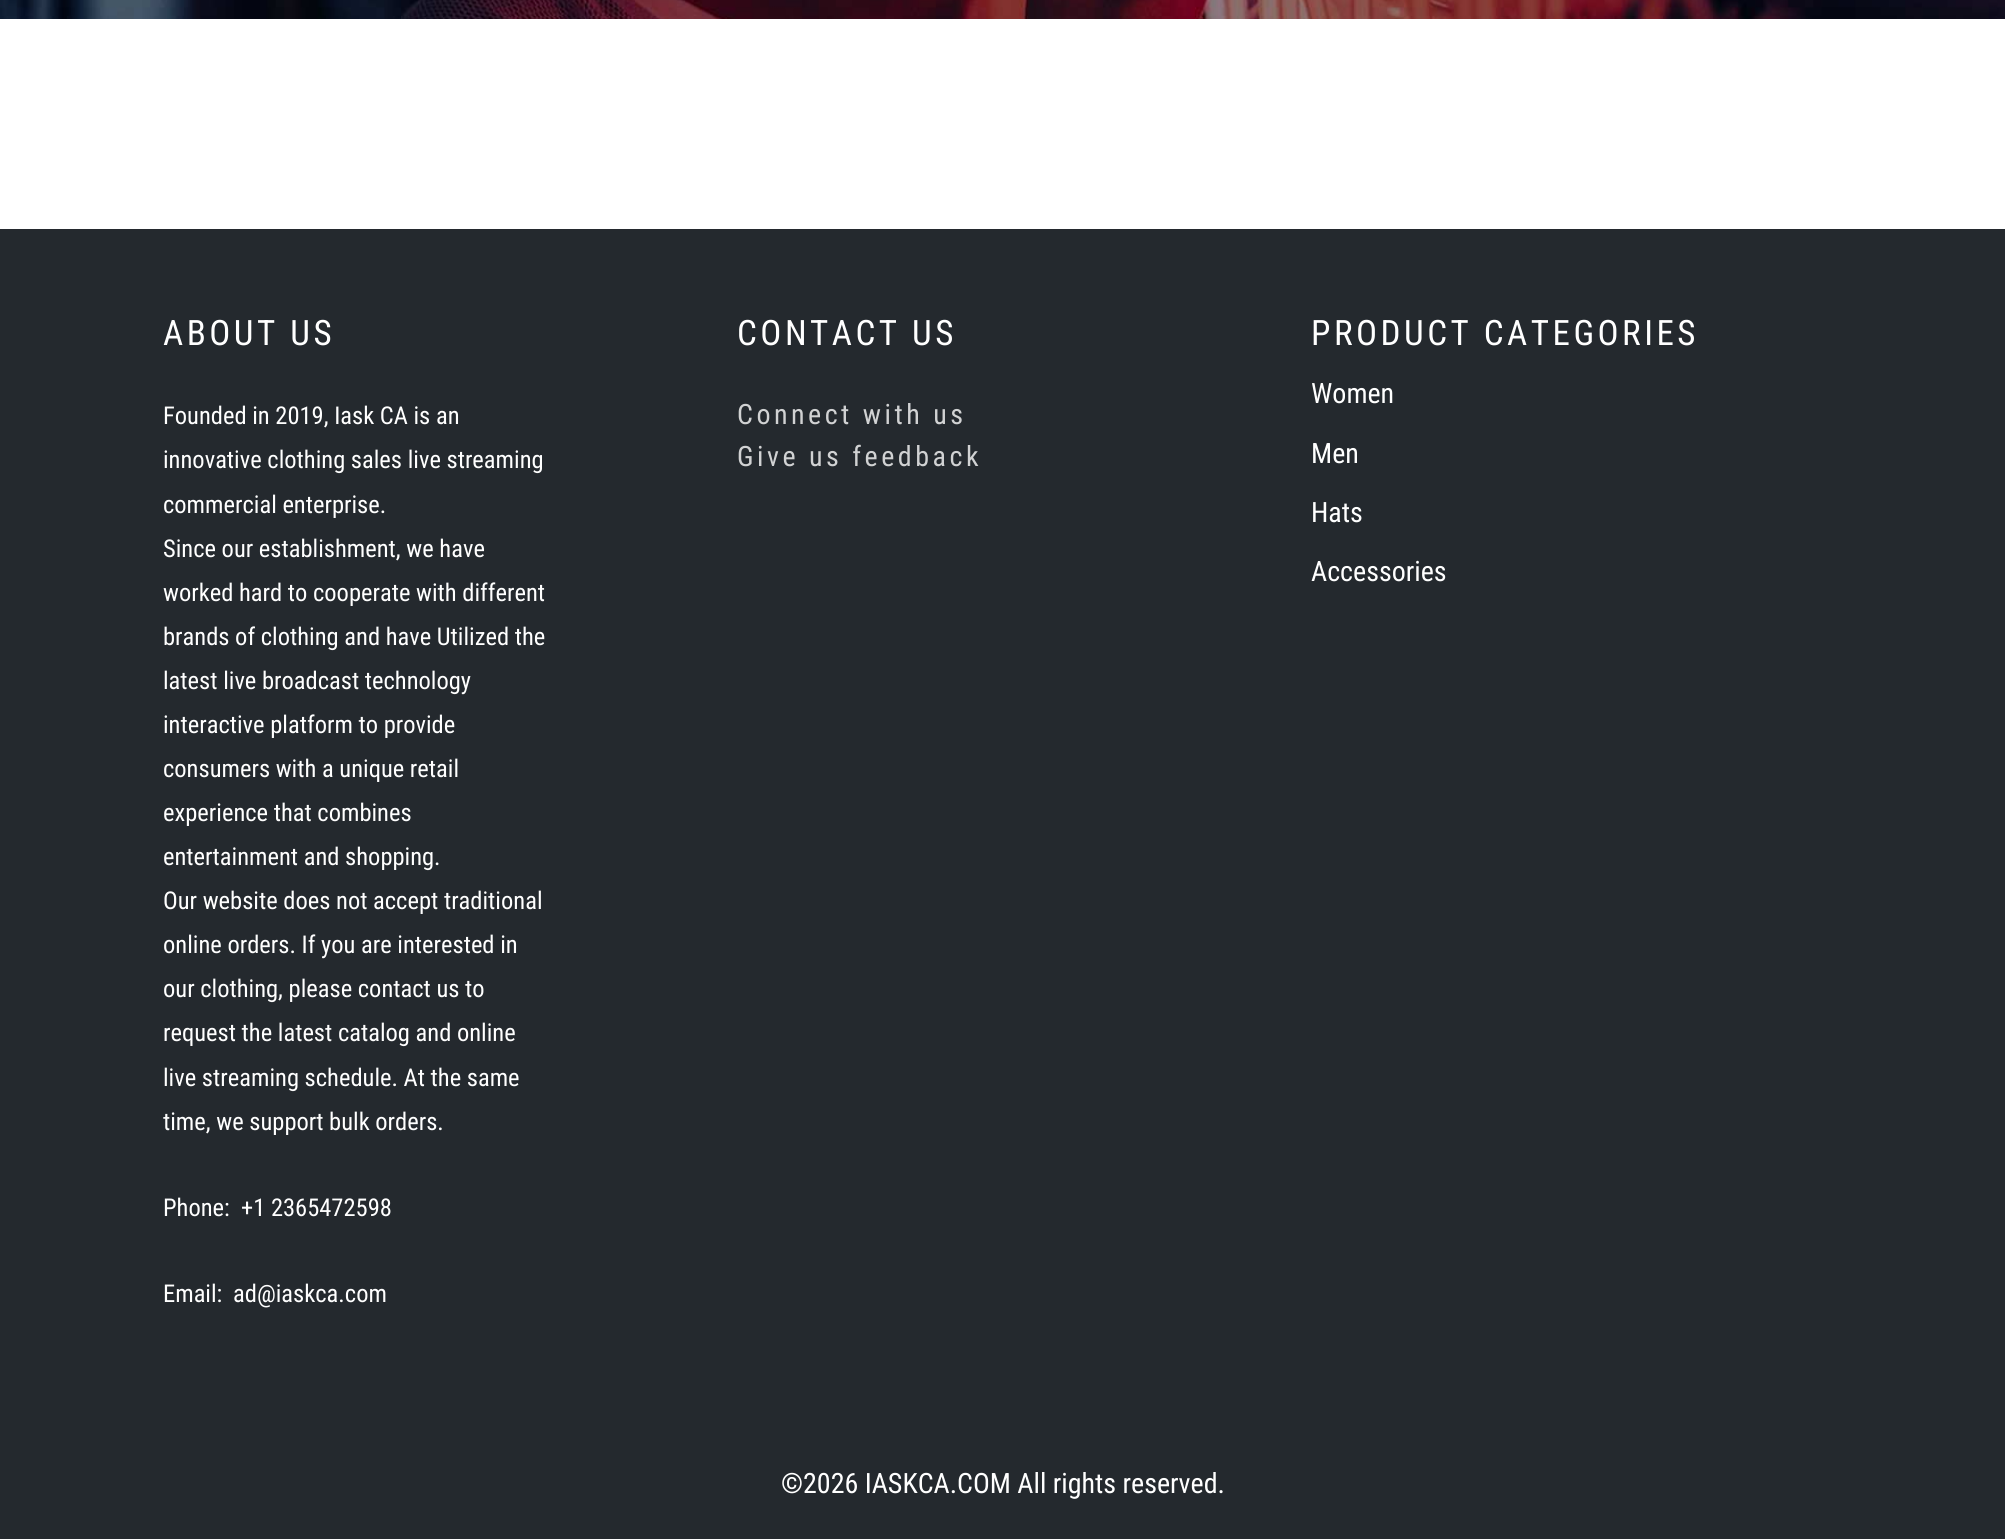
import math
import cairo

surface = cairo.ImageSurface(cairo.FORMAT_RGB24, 2005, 1539)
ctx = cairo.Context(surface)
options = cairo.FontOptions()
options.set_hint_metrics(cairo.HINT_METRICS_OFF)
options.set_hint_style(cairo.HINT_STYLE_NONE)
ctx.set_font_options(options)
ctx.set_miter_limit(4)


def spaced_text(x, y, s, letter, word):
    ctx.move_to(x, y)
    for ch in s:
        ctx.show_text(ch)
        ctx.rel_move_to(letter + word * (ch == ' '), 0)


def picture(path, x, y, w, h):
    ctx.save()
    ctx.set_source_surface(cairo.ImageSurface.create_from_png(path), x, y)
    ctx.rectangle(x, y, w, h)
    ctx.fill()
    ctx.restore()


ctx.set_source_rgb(1, 1, 1)
ctx.paint()
picture("img1.png", 0, 0, 2005, 19)
ctx.set_source_rgb(0.141, 0.161, 0.18)
ctx.rectangle(0, 229, 2005, 1310)
ctx.fill()
ctx.select_font_face("Roboto Condensed")
ctx.set_font_size(35)
ctx.set_source_rgb(1, 1, 1)
spaced_text(163, 345, "ABOUT US", 3.5, 0)
ctx.set_font_size(24.5)
ctx.move_to(163, 424)
ctx.show_text("Founded in 2019, Iask CA is an")
ctx.move_to(163, 468)
ctx.show_text("innovative clothing sales live streaming")
ctx.move_to(163, 513)
ctx.show_text("commercial enterprise.")
ctx.move_to(163, 557)
ctx.show_text("Since our establishment, we have")
ctx.move_to(163, 601)
ctx.show_text("worked hard to cooperate with different")
ctx.move_to(163, 645)
ctx.show_text("brands of clothing and have Utilized the")
ctx.move_to(163, 689)
ctx.show_text("latest live broadcast technology")
ctx.move_to(163, 733)
ctx.show_text("interactive platform to provide")
ctx.move_to(163, 777)
ctx.show_text("consumers with a unique retail")
ctx.move_to(163, 821)
ctx.show_text("experience that combines")
ctx.move_to(163, 865)
ctx.show_text("entertainment and shopping.")
ctx.move_to(163, 909)
ctx.show_text("Our website does not accept traditional")
ctx.move_to(163, 953)
ctx.show_text("online orders. If you are interested in")
ctx.move_to(163, 997)
ctx.show_text("our clothing, please contact us to")
ctx.move_to(163, 1041)
ctx.show_text("request the latest catalog and online")
ctx.move_to(163, 1086)
ctx.show_text("live streaming schedule. At the same")
ctx.move_to(163, 1130)
ctx.show_text("time, we support bulk orders.")
ctx.move_to(163, 1216)
ctx.show_text("Phone:")
ctx.move_to(241, 1216)
ctx.show_text("+1 2365472598")
ctx.move_to(163, 1302)
ctx.show_text("Email:")
ctx.move_to(233, 1302)
ctx.show_text("ad@iaskca.com")
ctx.set_font_size(35)
spaced_text(737, 345, "CONTACT US", 3.5, 0)
ctx.set_font_size(28)
ctx.set_source_rgb(0.82, 0.824, 0.827)
spaced_text(737, 424, "Connect with us", 3.5, 0)
spaced_text(737, 466, "Give us feedback", 3.5, 0)
ctx.set_font_size(35)
ctx.set_source_rgb(1, 1, 1)
spaced_text(1311, 345, "PRODUCT CATEGORIES", 3.5, 0)
ctx.set_font_size(28)
ctx.move_to(1311, 403)
ctx.show_text("Women")
ctx.move_to(1311, 463)
ctx.show_text("Men")
ctx.move_to(1311, 522)
ctx.show_text("Hats")
ctx.move_to(1311, 581)
ctx.show_text("Accessories")
ctx.move_to(781, 1493)
ctx.show_text("©2026 IASKCA.COM All rights reserved.")
surface.write_to_png("page.png")
